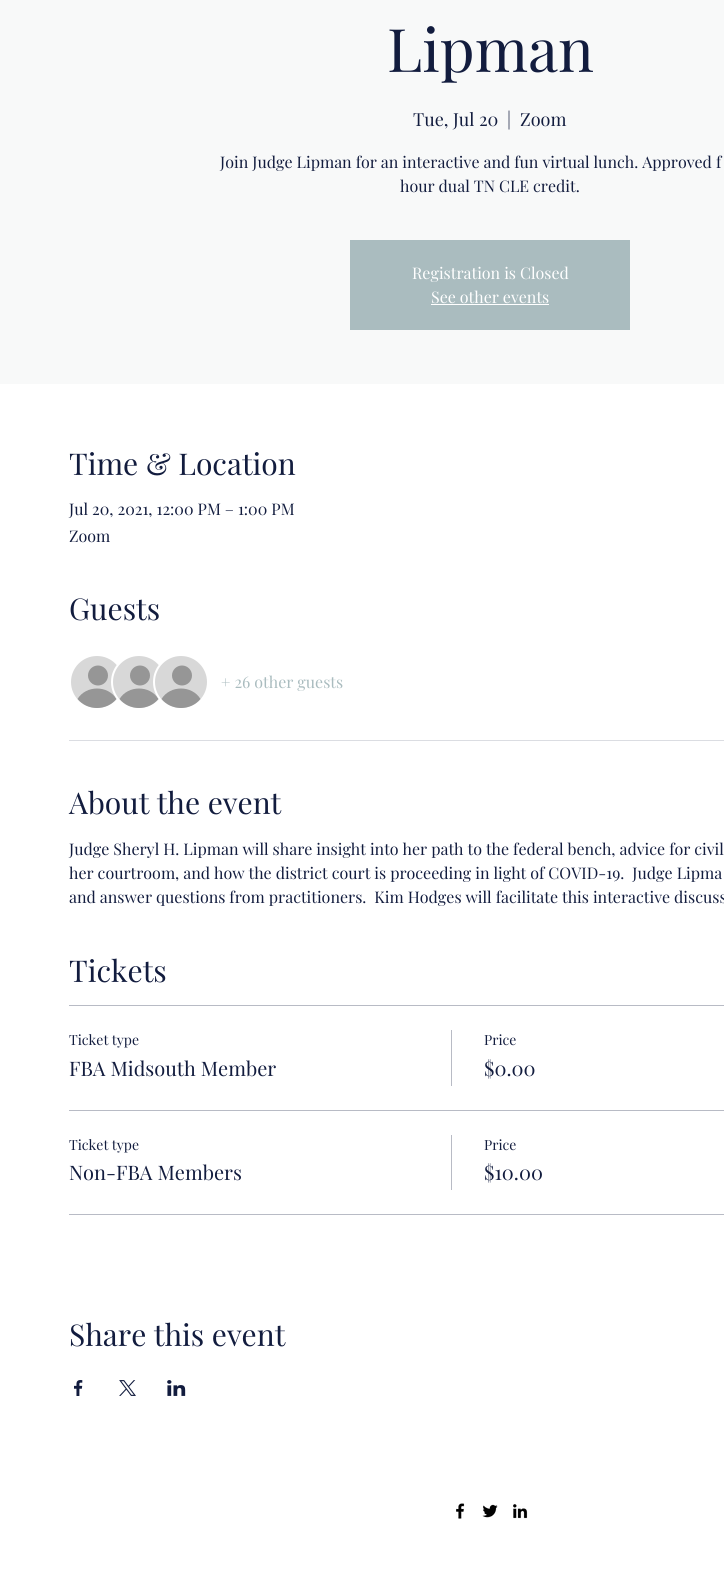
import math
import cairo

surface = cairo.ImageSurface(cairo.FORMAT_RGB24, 724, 1578)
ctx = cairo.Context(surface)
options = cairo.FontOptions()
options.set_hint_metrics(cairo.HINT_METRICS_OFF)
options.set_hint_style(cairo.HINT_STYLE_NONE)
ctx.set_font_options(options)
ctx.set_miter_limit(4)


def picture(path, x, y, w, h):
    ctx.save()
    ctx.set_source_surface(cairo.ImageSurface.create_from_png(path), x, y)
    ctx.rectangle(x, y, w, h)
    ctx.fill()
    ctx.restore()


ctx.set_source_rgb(1, 1, 1)
ctx.paint()
ctx.set_source_rgb(0.969, 0.976, 0.976)
ctx.rectangle(0, 0, 724, 384)
ctx.fill()
ctx.select_font_face("Playfair Display")
ctx.set_font_size(60)
ctx.set_source_rgb(0.071, 0.11, 0.243)
ctx.move_to(387, 72)
ctx.show_text("Lipman")
ctx.set_font_size(18)
ctx.move_to(413, 126)
ctx.show_text("Tue, Jul 20")
ctx.move_to(507, 126)
ctx.show_text("|")
ctx.move_to(520, 126)
ctx.show_text("Zoom")
ctx.set_font_size(16)
ctx.move_to(220, 168)
ctx.show_text("Join Judge Lipman for an interactive and fun virtual lunch. Approved f")
ctx.move_to(400, 192)
ctx.show_text("hour dual TN CLE credit.")
ctx.set_source_rgb(0.667, 0.737, 0.749)
ctx.rectangle(350, 240, 280, 90)
ctx.fill()
ctx.set_source_rgb(1, 1, 1)
ctx.move_to(412, 279)
ctx.show_text("Registration is Closed")
ctx.move_to(431, 303)
ctx.show_text("See other events")
ctx.rectangle(431, 304, 118, 1)
ctx.fill()
ctx.set_font_size(30)
ctx.set_source_rgb(0.071, 0.11, 0.243)
ctx.move_to(69, 475)
ctx.show_text("Time & Location")
ctx.set_font_size(16)
ctx.move_to(69, 515)
ctx.show_text("Jul 20, 2021, 12:00 PM – 1:00 PM")
ctx.move_to(69, 542)
ctx.show_text("Zoom")
ctx.set_font_size(30)
ctx.move_to(69, 620)
ctx.show_text("Guests")
ctx.set_source_rgb(0.847, 0.847, 0.847)
ctx.new_path()
ctx.arc(97, 682, 27, 0, 2 * math.pi)
ctx.fill_preserve()
ctx.set_source_rgb(1, 1, 1)
ctx.stroke()
ctx.set_source_rgb(0.588, 0.588, 0.588)
ctx.arc(98, 675.5, 10, 0, 2 * math.pi)
ctx.fill()
ctx.new_path()
ctx.move_to(116.5, 699)
ctx.curve_to(106.5, 711, 87.5, 711, 77.5, 699)
ctx.curve_to(86, 685, 108, 685, 116.5, 699)
ctx.close_path()
ctx.fill()
ctx.set_source_rgb(0.847, 0.847, 0.847)
ctx.arc(139, 682, 27, 0, 2 * math.pi)
ctx.fill_preserve()
ctx.set_source_rgb(1, 1, 1)
ctx.stroke()
ctx.set_source_rgb(0.588, 0.588, 0.588)
ctx.arc(140, 675.5, 10, 0, 2 * math.pi)
ctx.fill()
ctx.new_path()
ctx.move_to(158.5, 699)
ctx.curve_to(148.5, 711, 129.5, 711, 119.5, 699)
ctx.curve_to(128, 685, 150, 685, 158.5, 699)
ctx.close_path()
ctx.fill()
ctx.set_source_rgb(0.847, 0.847, 0.847)
ctx.arc(181, 682, 27, 0, 2 * math.pi)
ctx.fill_preserve()
ctx.set_source_rgb(1, 1, 1)
ctx.stroke()
ctx.set_source_rgb(0.588, 0.588, 0.588)
ctx.arc(182, 675.5, 10, 0, 2 * math.pi)
ctx.fill()
ctx.new_path()
ctx.move_to(200.5, 699)
ctx.curve_to(190.5, 711, 171.5, 711, 161.5, 699)
ctx.curve_to(170, 685, 192, 685, 200.5, 699)
ctx.close_path()
ctx.fill()
ctx.set_font_size(16)
ctx.set_source_rgb(0.667, 0.737, 0.749)
ctx.move_to(221, 688)
ctx.show_text("+ 26 other guests")
ctx.set_source_rgb(0.859, 0.867, 0.886)
ctx.rectangle(69, 740, 655, 1)
ctx.fill()
ctx.set_font_size(30)
ctx.set_source_rgb(0.071, 0.11, 0.243)
ctx.move_to(69, 814)
ctx.show_text("About the event")
ctx.set_font_size(16)
ctx.move_to(69, 855)
ctx.show_text("Judge Sheryl H. Lipman will share insight into her path to the federal bench, advice for civil")
ctx.move_to(69, 879)
ctx.show_text("her courtroom, and how the district court is proceeding in light of COVID-19.  Judge Lipma")
ctx.move_to(69, 903)
ctx.show_text("and answer questions from practitioners.  Kim Hodges will facilitate this interactive discuss")
ctx.set_font_size(30)
ctx.move_to(69, 982)
ctx.show_text("Tickets")
ctx.set_source_rgb(0.722, 0.733, 0.773)
ctx.rectangle(69, 1005, 655, 1)
ctx.fill()
ctx.rectangle(69, 1110, 655, 1)
ctx.fill()
ctx.set_font_size(14)
ctx.set_source_rgb(0.071, 0.11, 0.243)
ctx.move_to(69, 1045)
ctx.show_text("Ticket type")
ctx.set_font_size(20)
ctx.move_to(69, 1076)
ctx.show_text("FBA Midsouth Member")
ctx.set_source_rgb(0.722, 0.733, 0.773)
ctx.rectangle(451, 1030, 1, 56)
ctx.fill()
ctx.set_font_size(14)
ctx.set_source_rgb(0.071, 0.11, 0.243)
ctx.move_to(484, 1045)
ctx.show_text("Price")
ctx.set_font_size(20)
ctx.move_to(484, 1076)
ctx.show_text("$0.00")
ctx.set_source_rgb(0.722, 0.733, 0.773)
ctx.rectangle(69, 1214, 655, 1)
ctx.fill()
ctx.set_font_size(14)
ctx.set_source_rgb(0.071, 0.11, 0.243)
ctx.move_to(69, 1150)
ctx.show_text("Ticket type")
ctx.set_font_size(20)
ctx.move_to(69, 1180)
ctx.show_text("Non-FBA Members")
ctx.set_source_rgb(0.722, 0.733, 0.773)
ctx.rectangle(451, 1135, 1, 55)
ctx.fill()
ctx.set_font_size(14)
ctx.set_source_rgb(0.071, 0.11, 0.243)
ctx.move_to(484, 1150)
ctx.show_text("Price")
ctx.set_font_size(20)
ctx.move_to(484, 1180)
ctx.show_text("$10.00")
ctx.set_font_size(30)
ctx.move_to(69, 1346)
ctx.show_text("Share this event")
picture("img1.png", 74, 1380, 9, 16)
picture("img2.png", 119, 1380, 17, 16)
picture("img3.png", 167, 1380, 19, 16)
picture("img4.png", 456, 1503, 9, 16)
picture("img5.png", 482, 1504, 16, 14)
picture("img6.png", 513, 1504, 15, 15)
surface.write_to_png("page.png")
